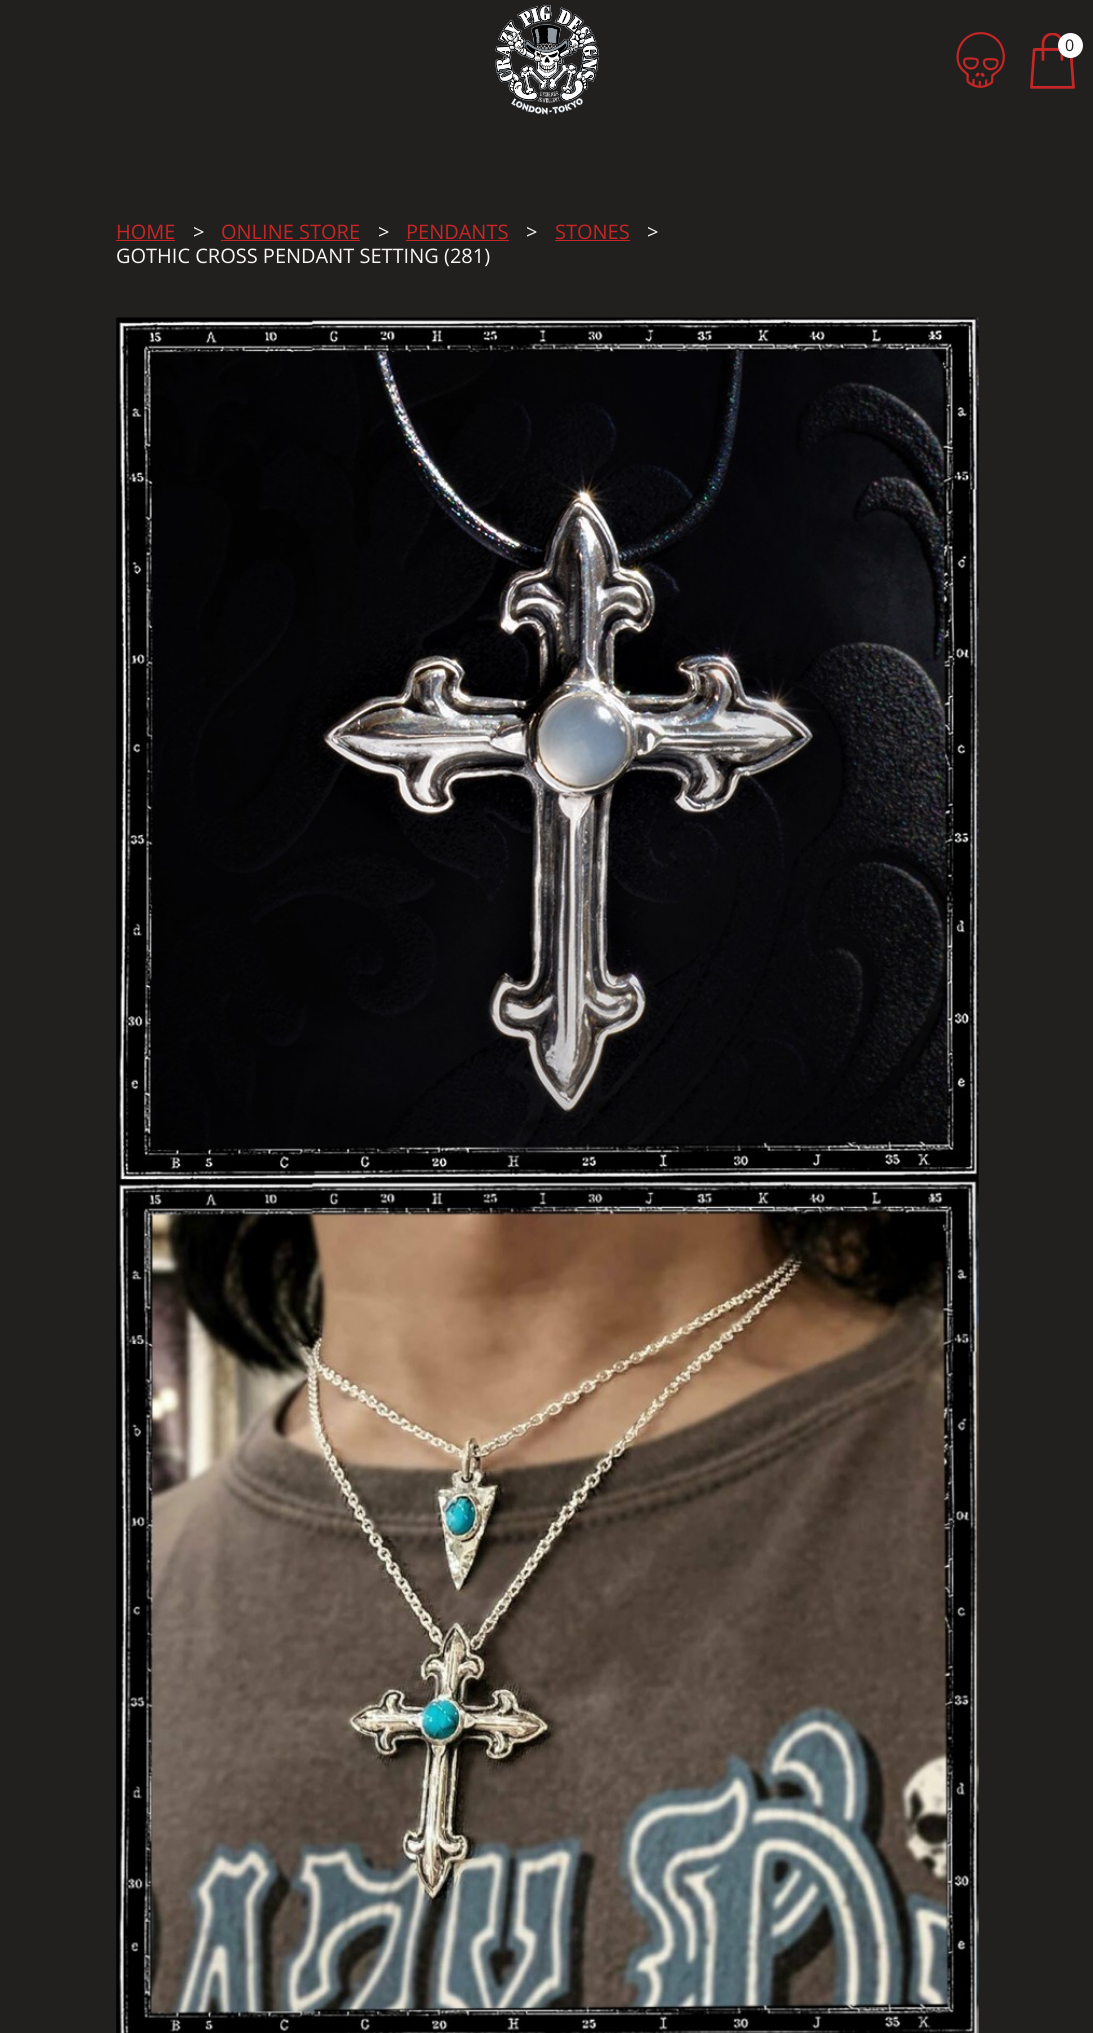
import math
import cairo

surface = cairo.ImageSurface(cairo.FORMAT_RGB24, 1093, 2033)
ctx = cairo.Context(surface)
options = cairo.FontOptions()
options.set_hint_metrics(cairo.HINT_METRICS_OFF)
options.set_hint_style(cairo.HINT_STYLE_NONE)
ctx.set_font_options(options)
ctx.set_miter_limit(4)


def picture(path, x, y, w, h):
    ctx.save()
    ctx.set_source_surface(cairo.ImageSurface.create_from_png(path), x, y)
    ctx.rectangle(x, y, w, h)
    ctx.fill()
    ctx.restore()


ctx.set_source_rgb(0.133, 0.122, 0.122)
ctx.paint()
picture("img1.png", 495, 4, 104, 111)
picture("img2.png", 956, 32, 49, 56)
picture("img3.png", 1030, 33, 45, 56)
ctx.set_source_rgb(1, 1, 1)
ctx.arc(1070.5, 45.5, 12.5, 0, 2 * math.pi)
ctx.fill()
ctx.select_font_face("Open Sans")
ctx.set_font_size(16)
ctx.set_source_rgb(0.133, 0.122, 0.122)
ctx.move_to(1065, 51)
ctx.show_text("0")
ctx.set_font_size(20)
ctx.set_source_rgb(0.773, 0.149, 0.149)
ctx.move_to(116, 239)
ctx.show_text("HOME")
ctx.rectangle(116, 240, 59, 1)
ctx.fill()
ctx.set_source_rgb(0.965, 0.961, 0.945)
ctx.move_to(193, 239)
ctx.show_text(">")
ctx.set_source_rgb(0.773, 0.149, 0.149)
ctx.move_to(221, 239)
ctx.show_text("ONLINE STORE")
ctx.rectangle(221, 240, 139, 1)
ctx.fill()
ctx.set_source_rgb(0.965, 0.961, 0.945)
ctx.move_to(378, 239)
ctx.show_text(">")
ctx.set_source_rgb(0.773, 0.149, 0.149)
ctx.move_to(406, 239)
ctx.show_text("PENDANTS")
ctx.rectangle(406, 240, 103, 1)
ctx.fill()
ctx.set_source_rgb(0.965, 0.961, 0.945)
ctx.move_to(526, 239)
ctx.show_text(">")
ctx.set_source_rgb(0.773, 0.149, 0.149)
ctx.move_to(555, 239)
ctx.show_text("STONES")
ctx.rectangle(555, 240, 75, 1)
ctx.fill()
ctx.set_source_rgb(0.965, 0.961, 0.945)
ctx.move_to(647, 239)
ctx.show_text(">")
ctx.move_to(116, 263)
ctx.show_text("GOTHIC CROSS PENDANT SETTING (281)")
picture("img4.png", 116, 317, 863, 863)
picture("img5.png", 116, 1180, 863, 853)
surface.write_to_png("page.png")
